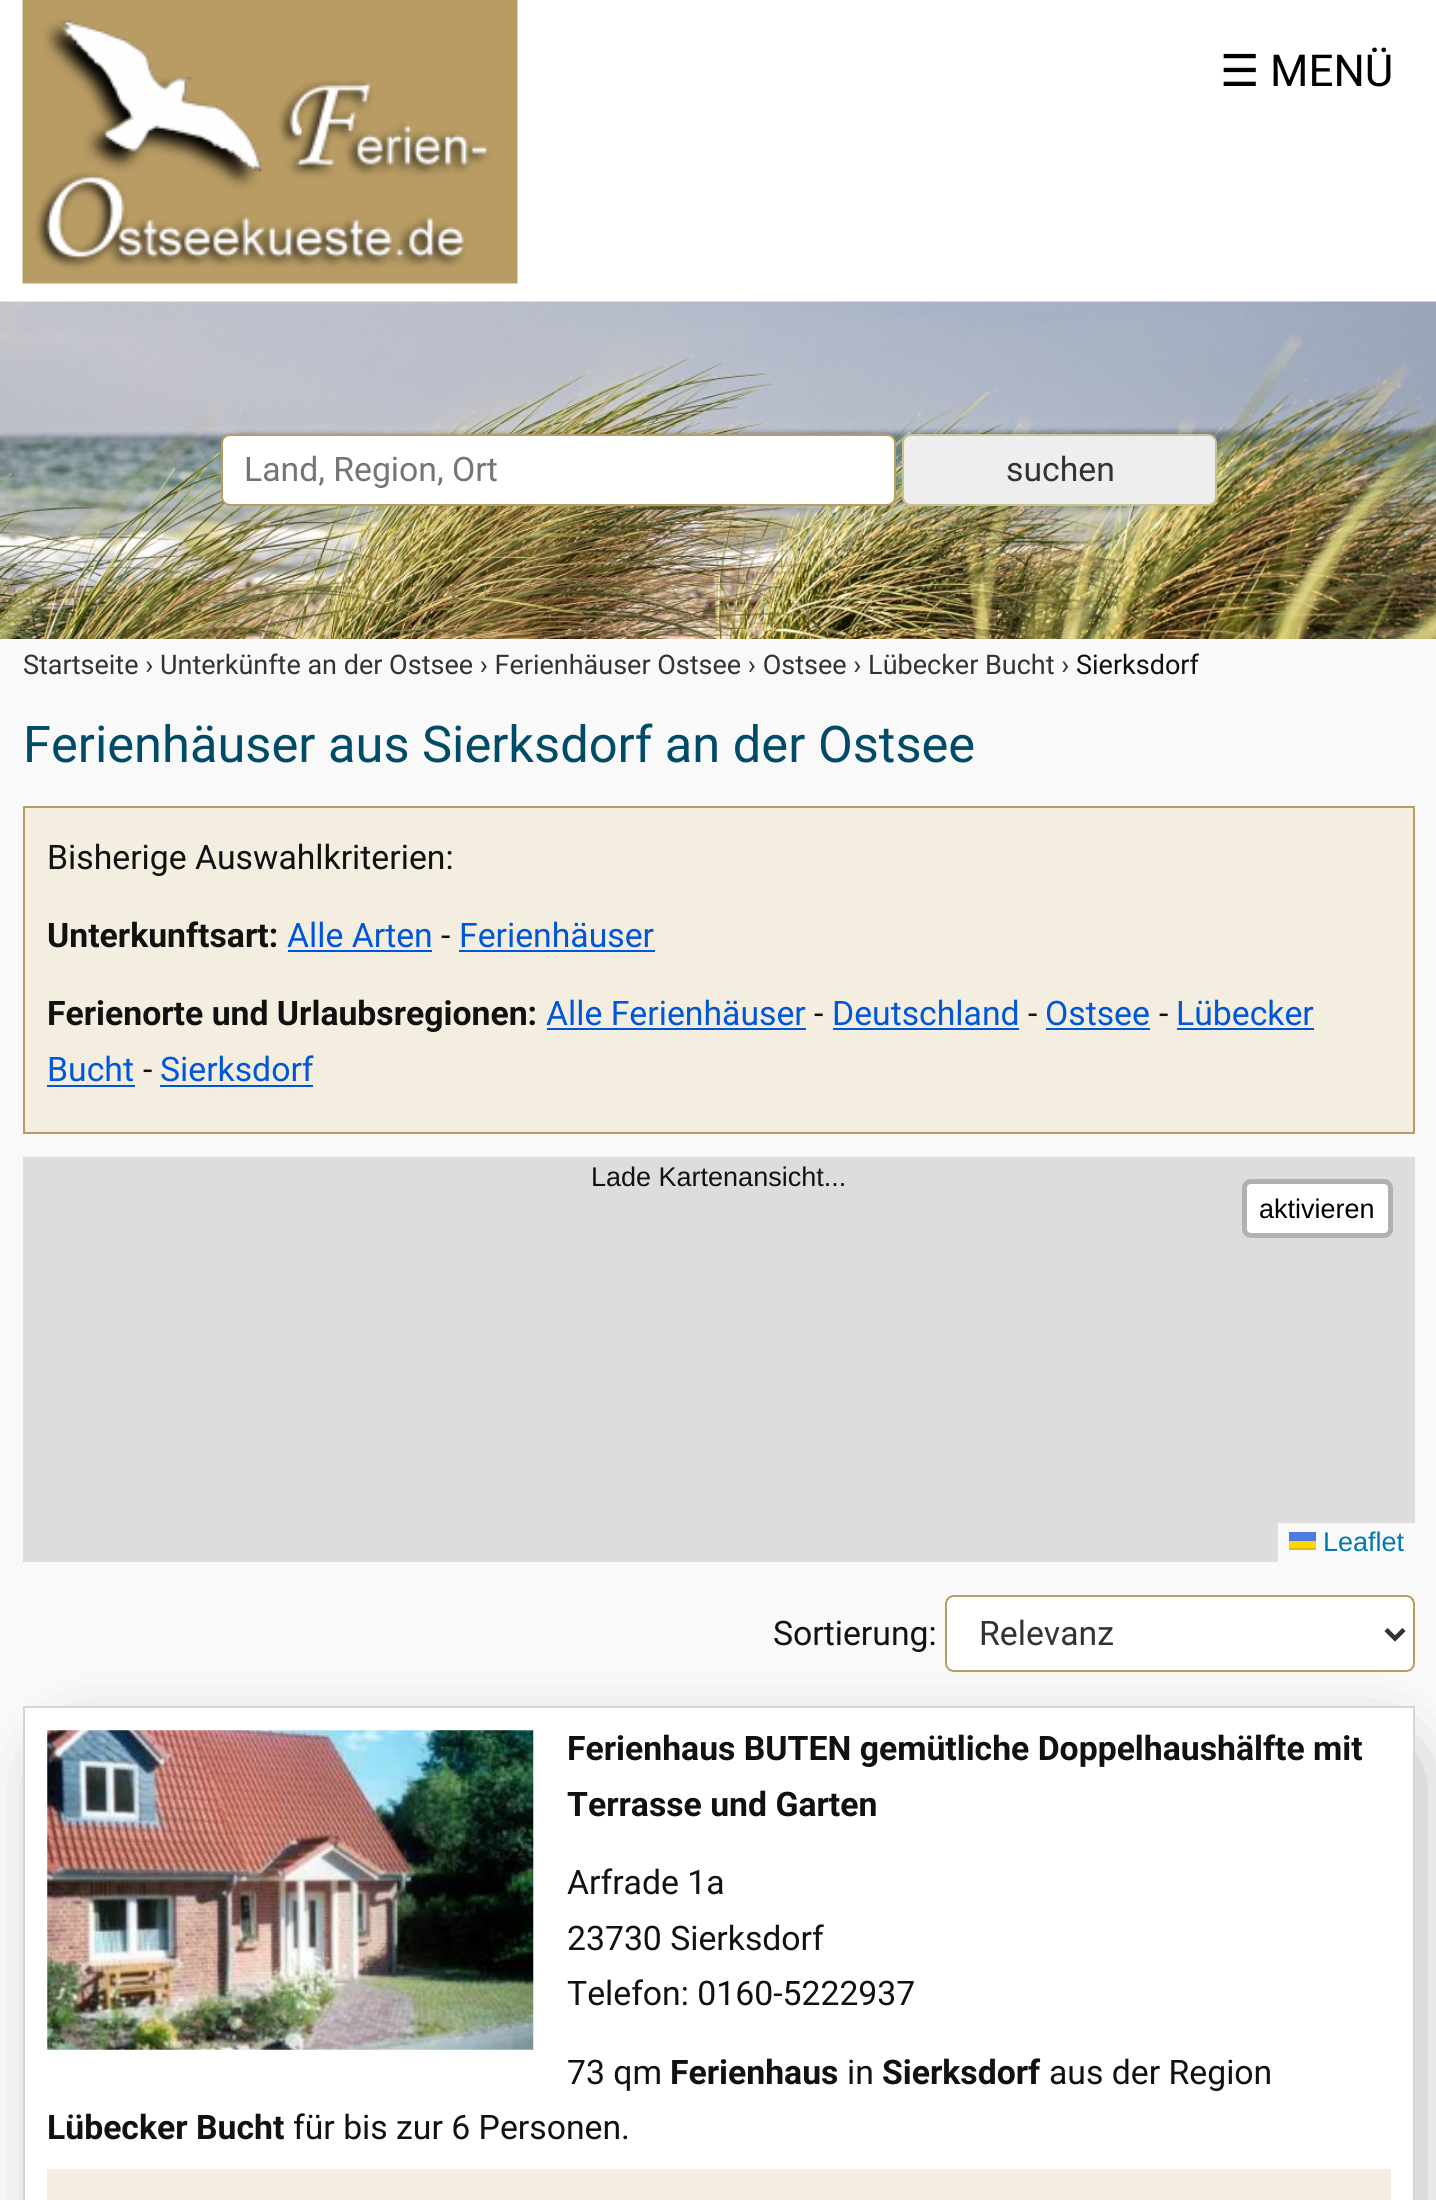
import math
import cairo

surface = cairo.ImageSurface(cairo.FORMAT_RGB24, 1436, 2200)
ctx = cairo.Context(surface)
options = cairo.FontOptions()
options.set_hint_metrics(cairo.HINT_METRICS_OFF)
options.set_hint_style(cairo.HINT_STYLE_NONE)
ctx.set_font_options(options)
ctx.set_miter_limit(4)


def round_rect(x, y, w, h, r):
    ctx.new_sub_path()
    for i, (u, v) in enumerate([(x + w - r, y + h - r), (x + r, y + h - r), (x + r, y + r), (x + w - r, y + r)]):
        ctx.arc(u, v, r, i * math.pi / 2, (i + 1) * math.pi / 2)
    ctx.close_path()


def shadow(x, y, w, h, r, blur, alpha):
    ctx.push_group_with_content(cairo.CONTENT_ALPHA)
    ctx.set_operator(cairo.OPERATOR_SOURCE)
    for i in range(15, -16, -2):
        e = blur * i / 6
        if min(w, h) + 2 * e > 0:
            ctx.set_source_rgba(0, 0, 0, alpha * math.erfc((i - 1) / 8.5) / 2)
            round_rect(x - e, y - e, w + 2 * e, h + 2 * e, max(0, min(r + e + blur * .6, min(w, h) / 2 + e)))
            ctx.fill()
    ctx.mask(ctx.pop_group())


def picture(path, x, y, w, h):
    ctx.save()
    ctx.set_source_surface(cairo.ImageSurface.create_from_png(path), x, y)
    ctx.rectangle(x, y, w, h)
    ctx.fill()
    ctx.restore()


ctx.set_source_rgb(0.976, 0.976, 0.976)
ctx.paint()
ctx.set_source_rgb(1, 1, 1)
ctx.rectangle(0, 0, 1436, 302)
ctx.fill()
picture("img1.png", 22, 0, 496, 284)
ctx.select_font_face("DejaVu Sans")
ctx.set_font_size(44)
ctx.set_source_rgb(0, 0, 0)
ctx.move_to(1220, 86)
ctx.show_text("☰")
ctx.select_font_face("Roboto")
ctx.move_to(1270, 86)
ctx.show_text("MENÜ")
picture("img2.png", 0, 301, 1436, 338)
ctx.set_source_rgb(1, 1, 1)
round_rect(222, 435, 673, 70, 8)
ctx.fill_preserve()
ctx.set_source_rgb(0.722, 0.612, 0.392)
ctx.stroke()
ctx.set_font_size(33.75)
ctx.set_source_rgb(0.459, 0.459, 0.459)
ctx.move_to(244, 481)
ctx.show_text("Land, Region, Ort")
ctx.set_source_rgb(0.933, 0.933, 0.933)
round_rect(903, 435, 313, 70, 8)
ctx.fill_preserve()
ctx.set_source_rgb(0.773, 0.773, 0.545)
ctx.stroke()
ctx.set_source_rgb(0.2, 0.2, 0.2)
ctx.move_to(1006, 481)
ctx.show_text("suchen")
ctx.set_font_size(27)
ctx.move_to(23, 674)
ctx.show_text("Startseite › Unterkünfte an der Ostsee › Ferienhäuser Ostsee › Ostsee › Lübecker Bucht ›")
ctx.set_source_rgb(0.067, 0.067, 0.067)
ctx.move_to(1076, 674)
ctx.show_text("Sierksdorf")
ctx.set_font_size(50.6)
ctx.set_source_rgb(0, 0.294, 0.404)
ctx.move_to(23, 762)
ctx.show_text("Ferienhäuser aus Sierksdorf an der Ostsee")
ctx.set_source_rgb(0.957, 0.933, 0.878)
ctx.rectangle(24, 807, 1390, 326)
ctx.fill_preserve()
ctx.set_source_rgb(0.722, 0.612, 0.392)
ctx.stroke()
ctx.set_font_size(33.75)
ctx.set_source_rgb(0.067, 0.067, 0.067)
ctx.move_to(47, 869)
ctx.show_text("Bisherige Auswahlkriterien:")
ctx.select_font_face("Roboto", cairo.FONT_SLANT_NORMAL, cairo.FONT_WEIGHT_BOLD)
ctx.move_to(47, 947)
ctx.show_text("Unterkunftsart:")
ctx.select_font_face("Roboto")
ctx.set_source_rgb(0, 0.337, 0.843)
ctx.move_to(287, 947)
ctx.show_text("Alle Arten")
ctx.rectangle(288, 950, 144, 2)
ctx.fill()
ctx.set_source_rgb(0.067, 0.067, 0.067)
ctx.move_to(441, 947)
ctx.show_text("-")
ctx.set_source_rgb(0, 0.337, 0.843)
ctx.move_to(459, 947)
ctx.show_text("Ferienhäuser")
ctx.rectangle(459, 950, 196, 2)
ctx.fill()
ctx.select_font_face("Roboto", cairo.FONT_SLANT_NORMAL, cairo.FONT_WEIGHT_BOLD)
ctx.set_source_rgb(0.067, 0.067, 0.067)
ctx.move_to(47, 1025)
ctx.show_text("Ferienorte und Urlaubsregionen:")
ctx.select_font_face("Roboto")
ctx.set_source_rgb(0, 0.337, 0.843)
ctx.move_to(546, 1025)
ctx.show_text("Alle Ferienhäuser")
ctx.rectangle(547, 1028, 259, 2)
ctx.fill()
ctx.set_source_rgb(0.067, 0.067, 0.067)
ctx.move_to(814, 1025)
ctx.show_text("-")
ctx.set_source_rgb(0, 0.337, 0.843)
ctx.move_to(832, 1025)
ctx.show_text("Deutschland")
ctx.rectangle(833, 1028, 186, 2)
ctx.fill()
ctx.set_source_rgb(0.067, 0.067, 0.067)
ctx.move_to(1028, 1025)
ctx.show_text("-")
ctx.set_source_rgb(0, 0.337, 0.843)
ctx.move_to(1045, 1025)
ctx.show_text("Ostsee")
ctx.rectangle(1046, 1028, 104, 2)
ctx.fill()
ctx.set_source_rgb(0.067, 0.067, 0.067)
ctx.move_to(1159, 1025)
ctx.show_text("-")
ctx.set_source_rgb(0, 0.337, 0.843)
ctx.move_to(1176, 1025)
ctx.show_text("Lübecker")
ctx.rectangle(1177, 1028, 137, 2)
ctx.fill()
ctx.move_to(47, 1081)
ctx.show_text("Bucht")
ctx.rectangle(47, 1085, 88, 2)
ctx.fill()
ctx.set_source_rgb(0.067, 0.067, 0.067)
ctx.move_to(143, 1081)
ctx.show_text("-")
ctx.set_source_rgb(0, 0.337, 0.843)
ctx.move_to(160, 1081)
ctx.show_text("Sierksdorf")
ctx.rectangle(160, 1085, 153, 2)
ctx.fill()
ctx.set_source_rgb(0.867, 0.867, 0.867)
ctx.rectangle(23, 1157, 1392, 405)
ctx.fill()
ctx.select_font_face("Liberation Sans")
ctx.set_font_size(27)
ctx.set_source_rgb(0.067, 0.067, 0.067)
ctx.move_to(591, 1186)
ctx.show_text("Lade Kartenansicht...")
ctx.set_source_rgb(1, 1, 1)
round_rect(1244.5, 1181.5, 146, 54, 6.5)
ctx.fill_preserve()
ctx.set_source_rgb(0.694, 0.694, 0.694)
ctx.set_line_width(5)
ctx.stroke()
ctx.set_source_rgb(0, 0, 0)
ctx.move_to(1259, 1218)
ctx.show_text("aktivieren")
ctx.set_source_rgb(0.973, 0.973, 0.973)
ctx.rectangle(1278, 1523, 137, 39)
ctx.fill()
ctx.set_source_rgb(0, 0.471, 0.659)
ctx.move_to(1323, 1551)
ctx.show_text("Leaflet")
ctx.set_source_rgb(0.298, 0.482, 0.882)
ctx.rectangle(1289, 1532, 27, 9)
ctx.fill()
ctx.set_source_rgb(1, 0.835, 0)
ctx.rectangle(1289, 1541, 27, 7)
ctx.fill()
ctx.set_source_rgb(0.878, 0.737, 0)
ctx.rectangle(1289, 1548, 27, 2)
ctx.fill()
ctx.select_font_face("Roboto")
ctx.set_font_size(33.75)
ctx.set_source_rgb(0.067, 0.067, 0.067)
ctx.move_to(773, 1645)
ctx.show_text("Sortierung:")
ctx.set_source_rgb(1, 1, 1)
round_rect(946, 1596, 468, 75, 8)
ctx.fill_preserve()
ctx.set_source_rgb(0.722, 0.612, 0.392)
ctx.set_line_width(2)
ctx.stroke()
ctx.new_path()
ctx.move_to(1386, 1629.5)
ctx.line_to(1395, 1638.5)
ctx.line_to(1404, 1629.5)
ctx.set_source_rgb(0.2, 0.2, 0.2)
ctx.set_line_width(4.5)
ctx.stroke()
ctx.move_to(979, 1645)
ctx.show_text("Relevanz")
ctx.set_source_rgb(0, 0, 0)
shadow(79, 1769, 1303, 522, 0, 39.5, 0.75)
ctx.set_source_rgb(1, 1, 1)
ctx.rectangle(24, 1707, 1390, 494)
ctx.fill_preserve()
ctx.set_source_rgb(0.82, 0.843, 0.859)
ctx.set_line_width(2)
ctx.stroke()
picture("img3.png", 47, 1730, 487, 320)
ctx.select_font_face("Roboto", cairo.FONT_SLANT_NORMAL, cairo.FONT_WEIGHT_BOLD)
ctx.set_source_rgb(0.067, 0.067, 0.067)
ctx.move_to(567, 1760)
ctx.show_text("Ferienhaus BUTEN gemütliche Doppelhaushälfte mit")
ctx.move_to(567, 1816)
ctx.show_text("Terrasse und Garten")
ctx.select_font_face("Roboto")
ctx.move_to(567, 1894)
ctx.show_text("Arfrade 1a")
ctx.move_to(567, 1950)
ctx.show_text("23730 Sierksdorf")
ctx.move_to(567, 2005)
ctx.show_text("Telefon: 0160-5222937")
ctx.move_to(567, 2084)
ctx.show_text("73 qm")
ctx.select_font_face("Roboto", cairo.FONT_SLANT_NORMAL, cairo.FONT_WEIGHT_BOLD)
ctx.move_to(670, 2084)
ctx.show_text("Ferienhaus")
ctx.select_font_face("Roboto")
ctx.move_to(847, 2084)
ctx.show_text("in")
ctx.select_font_face("Roboto", cairo.FONT_SLANT_NORMAL, cairo.FONT_WEIGHT_BOLD)
ctx.move_to(882, 2084)
ctx.show_text("Sierksdorf")
ctx.select_font_face("Roboto")
ctx.move_to(1049, 2084)
ctx.show_text("aus der Region")
ctx.select_font_face("Roboto", cairo.FONT_SLANT_NORMAL, cairo.FONT_WEIGHT_BOLD)
ctx.move_to(47, 2139)
ctx.show_text("Lübecker Bucht")
ctx.select_font_face("Roboto")
ctx.move_to(293, 2139)
ctx.show_text("für bis zur 6 Personen.")
ctx.set_source_rgb(0.957, 0.933, 0.878)
ctx.rectangle(47, 2169, 1344, 31)
ctx.fill()
surface.write_to_png("page.png")
